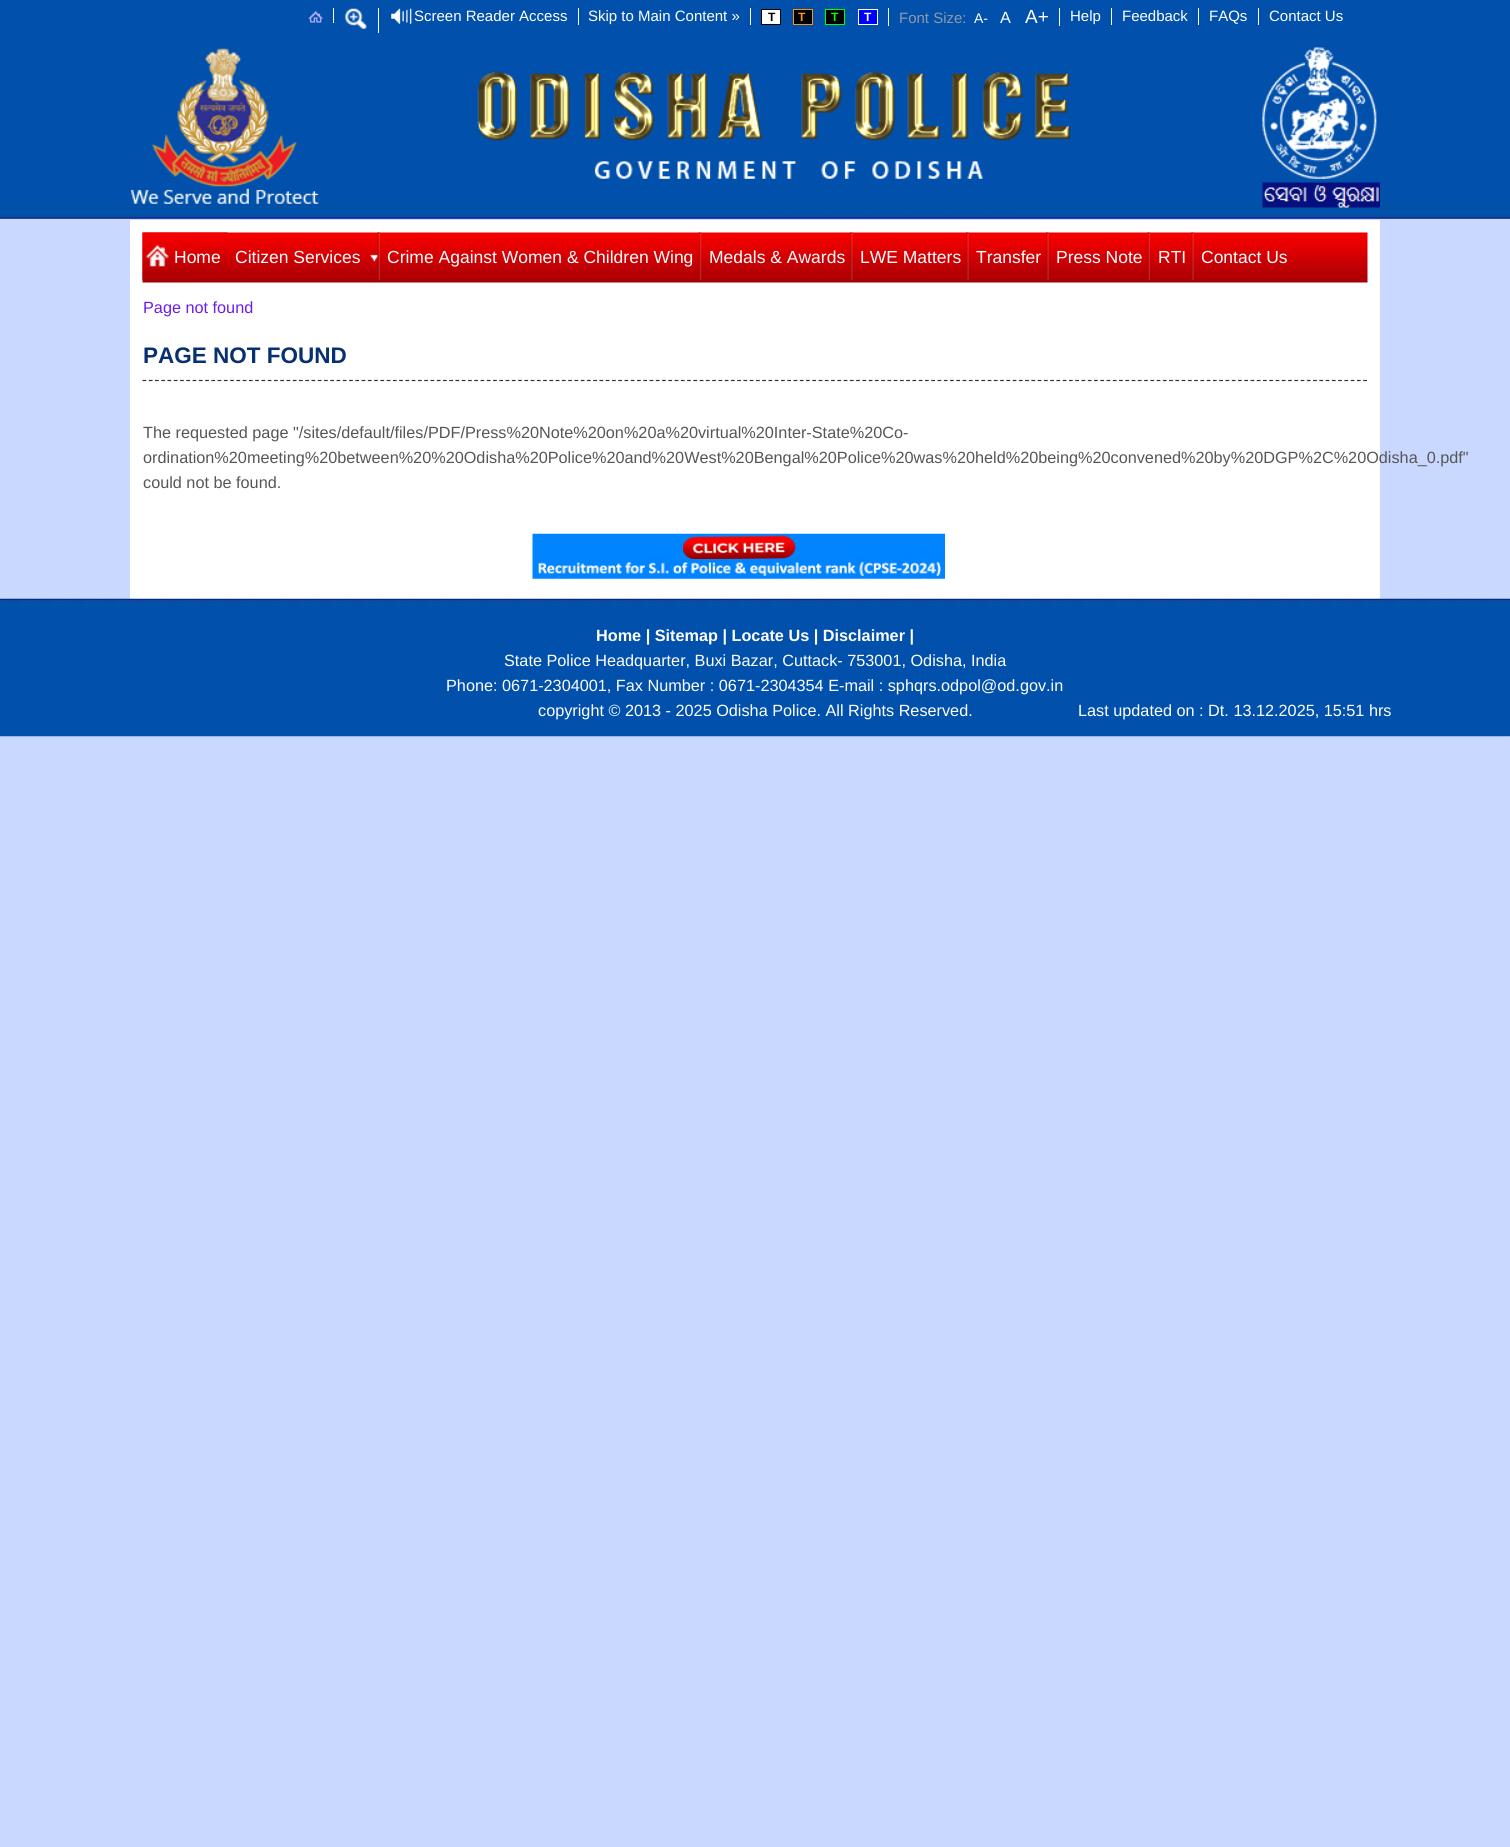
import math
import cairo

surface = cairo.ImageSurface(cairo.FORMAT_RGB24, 1510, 1847)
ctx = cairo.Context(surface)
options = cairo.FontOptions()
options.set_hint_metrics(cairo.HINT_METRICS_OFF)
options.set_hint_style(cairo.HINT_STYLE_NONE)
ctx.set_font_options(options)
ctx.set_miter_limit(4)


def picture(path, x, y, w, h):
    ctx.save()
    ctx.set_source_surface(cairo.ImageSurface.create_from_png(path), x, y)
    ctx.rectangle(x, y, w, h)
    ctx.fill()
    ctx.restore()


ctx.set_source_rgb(0.788, 0.847, 1)
ctx.paint()
picture("img1.png", 0, 0, 1510, 219)
ctx.set_source_rgb(1, 1, 1)
ctx.rectangle(333, 8, 1, 15)
ctx.fill()
picture("img2.png", 308, 11, 15, 12)
ctx.rectangle(378, 8, 1, 25)
ctx.fill()
picture("img3.png", 344, 8, 23, 21)
picture("img4.png", 391, 8, 21, 16)
ctx.rectangle(578, 8, 1, 17)
ctx.fill()
ctx.select_font_face("Liberation Sans")
ctx.set_font_size(15)
ctx.move_to(414, 21)
ctx.show_text("Screen Reader Access")
ctx.rectangle(750, 8, 1, 17)
ctx.fill()
ctx.move_to(588, 21)
ctx.show_text("Skip to Main Content »")
ctx.rectangle(888, 8, 1, 18)
ctx.fill()
ctx.rectangle(761.5, 9.5, 19, 15)
ctx.fill_preserve()
ctx.set_source_rgb(0, 0, 0)
ctx.set_line_width(1)
ctx.stroke()
ctx.select_font_face("Liberation Sans", cairo.FONT_SLANT_NORMAL, cairo.FONT_WEIGHT_BOLD)
ctx.set_font_size(12)
ctx.move_to(768, 21)
ctx.show_text("T")
ctx.rectangle(793.5, 9.5, 19, 15)
ctx.fill_preserve()
ctx.set_source_rgb(1, 0.573, 0.051)
ctx.stroke()
ctx.move_to(798, 21)
ctx.show_text("T")
ctx.set_source_rgb(0, 0, 0)
ctx.rectangle(825.5, 9.5, 19, 15)
ctx.fill_preserve()
ctx.set_source_rgb(0, 1, 0)
ctx.stroke()
ctx.move_to(831, 21)
ctx.show_text("T")
ctx.set_source_rgb(0, 0, 1)
ctx.rectangle(858.5, 9.5, 19, 15)
ctx.fill_preserve()
ctx.set_source_rgb(1, 1, 1)
ctx.stroke()
ctx.move_to(864, 21)
ctx.show_text("T")
ctx.rectangle(1059, 8, 1, 18)
ctx.fill()
ctx.select_font_face("Liberation Sans")
ctx.set_font_size(15)
ctx.set_source_rgb(0.561, 0.6, 0.663)
ctx.move_to(899, 23)
ctx.show_text("Font Size:")
ctx.set_font_size(14)
ctx.set_source_rgb(1, 1, 1)
ctx.move_to(974, 23)
ctx.show_text("A-")
ctx.set_font_size(16.25)
ctx.move_to(1000, 23)
ctx.show_text("A")
ctx.set_font_size(19)
ctx.move_to(1025, 23)
ctx.show_text("A+")
ctx.rectangle(1111, 8, 1, 17)
ctx.fill()
ctx.set_font_size(15)
ctx.move_to(1070, 21)
ctx.show_text("Help")
ctx.rectangle(1198, 8, 1, 17)
ctx.fill()
ctx.move_to(1122, 21)
ctx.show_text("Feedback")
ctx.rectangle(1258, 8, 1, 17)
ctx.fill()
ctx.move_to(1209, 21)
ctx.show_text("FAQs")
ctx.move_to(1269, 21)
ctx.show_text("Contact Us")
picture("img5.png", 130, 48, 189, 156)
picture("img6.png", 477, 72, 594, 107)
picture("img7.png", 1262, 47, 118, 161)
ctx.rectangle(130, 220, 1250, 379)
ctx.fill()
picture("img8.png", 142, 232, 1226, 51)
picture("img9.png", 142, 232, 86, 48)
ctx.set_font_size(17.5)
ctx.move_to(174, 263)
ctx.show_text("Home")
picture("img10.png", 369, 254, 9, 8)
picture("img11.png", 377, 232, 3, 48)
ctx.move_to(235, 263)
ctx.show_text("Citizen Services")
picture("img12.png", 698, 232, 4, 48)
ctx.move_to(387, 263)
ctx.show_text("Crime Against Women & Children Wing")
picture("img13.png", 850, 232, 3, 48)
ctx.move_to(709, 263)
ctx.show_text("Medals & Awards")
picture("img14.png", 966, 232, 3, 48)
ctx.move_to(860, 263)
ctx.show_text("LWE Matters")
picture("img14.png", 1046, 232, 3, 48)
ctx.move_to(976, 263)
ctx.show_text("Transfer")
picture("img15.png", 1147, 232, 3, 48)
ctx.move_to(1056, 263)
ctx.show_text("Press Note")
picture("img14.png", 1191, 232, 3, 48)
ctx.move_to(1158, 263)
ctx.show_text("RTI")
ctx.move_to(1201, 263)
ctx.show_text("Contact Us")
ctx.set_font_size(16.25)
ctx.set_source_rgb(0.42, 0.114, 0.922)
ctx.move_to(143, 313)
ctx.show_text("Page not found")
ctx.new_path()
ctx.move_to(142.5, 380.5)
ctx.line_to(1367.5, 380.5)
ctx.set_source_rgb(0.2, 0.2, 0.2)
ctx.set_line_width(1.2)
ctx.set_dash([3.75, 2.51])
ctx.stroke()
ctx.select_font_face("Liberation Sans", cairo.FONT_SLANT_NORMAL, cairo.FONT_WEIGHT_BOLD)
ctx.set_font_size(22.5)
ctx.set_source_rgb(0.024, 0.188, 0.439)
ctx.move_to(143, 363)
ctx.show_text("PAGE NOT FOUND")
ctx.select_font_face("Liberation Sans")
ctx.set_font_size(16.25)
ctx.set_source_rgb(0.337, 0.337, 0.337)
ctx.move_to(143, 438)
ctx.show_text("The requested page \"/sites/default/files/PDF/Press%20Note%20on%20a%20virtual%20Inter-State%20Co-")
ctx.move_to(143, 463)
ctx.show_text("ordination%20meeting%20between%20%20Odisha%20Police%20and%20West%20Bengal%20Police%20was%20held%20being%20convened%20by%20DGP%2C%20Odisha_0.pdf\"")
ctx.move_to(143, 488)
ctx.show_text("could not be found.")
picture("img16.png", 532, 533, 413, 46)
picture("img17.png", 0, 598, 1510, 139)
ctx.select_font_face("Liberation Sans", cairo.FONT_SLANT_NORMAL, cairo.FONT_WEIGHT_BOLD)
ctx.set_source_rgb(1, 1, 1)
ctx.move_to(596, 641)
ctx.show_text("Home | Sitemap | Locate Us | Disclaimer |")
ctx.select_font_face("Liberation Sans")
ctx.move_to(504, 666)
ctx.show_text("State Police Headquarter, Buxi Bazar, Cuttack- 753001, Odisha, India")
ctx.move_to(446, 691)
ctx.show_text("Phone: 0671-2304001, Fax Number : 0671-2304354 E-mail : sphqrs.odpol@od.gov.in")
ctx.move_to(538, 716)
ctx.show_text("copyright © 2013 - 2025 Odisha Police. All Rights Reserved.")
ctx.move_to(1078, 716)
ctx.show_text("Last updated on : Dt. 13.12.2025, 15:51 hrs")
surface.write_to_png("page.png")
